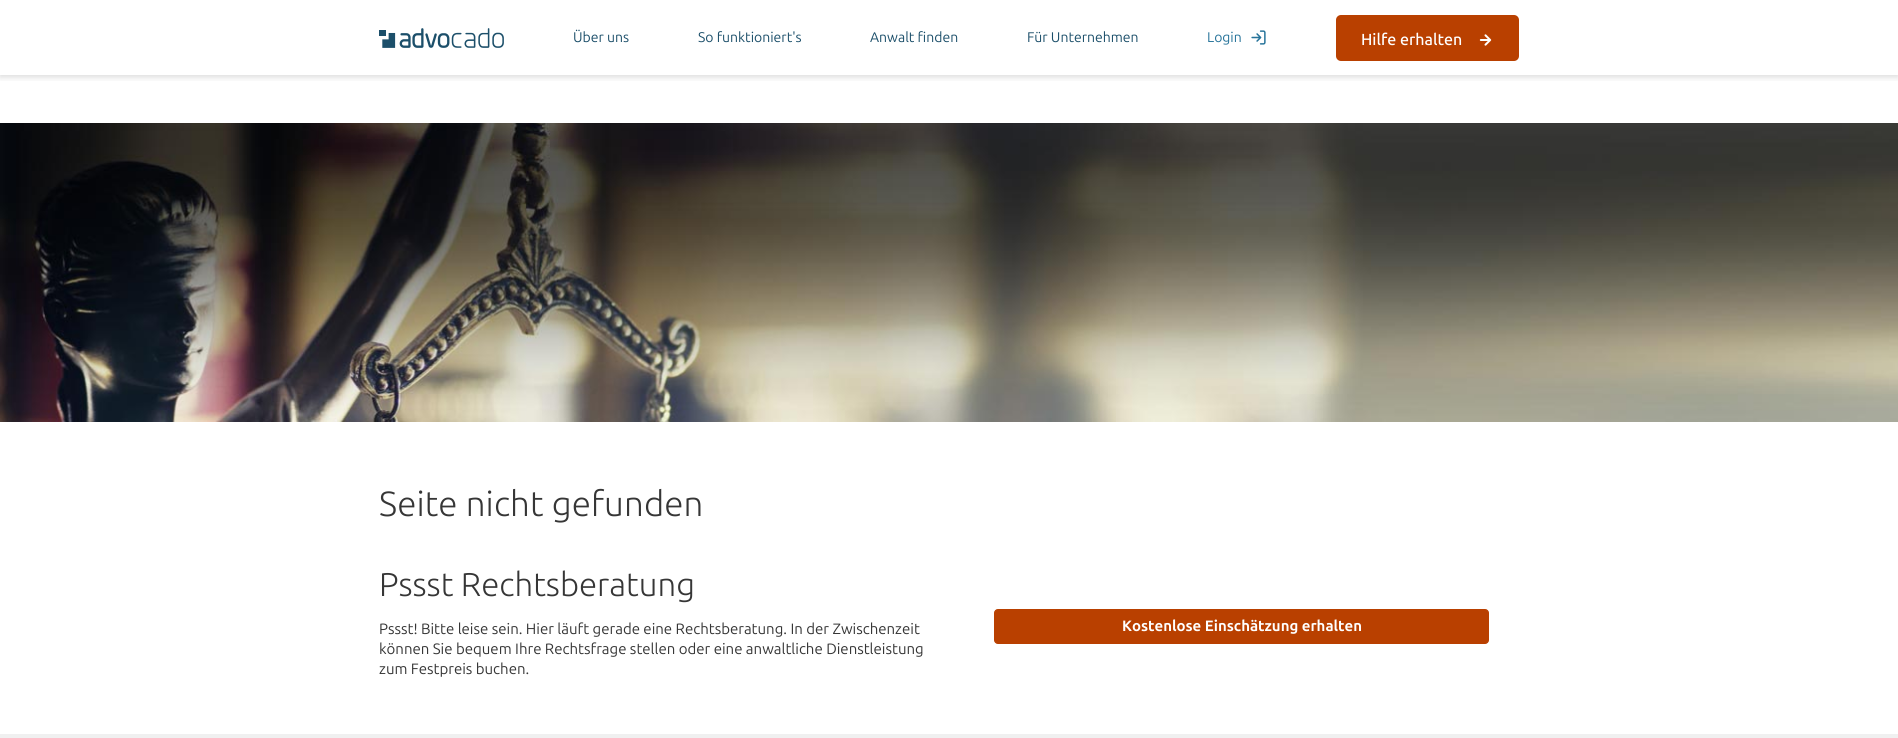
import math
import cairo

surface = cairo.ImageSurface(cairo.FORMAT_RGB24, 1898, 738)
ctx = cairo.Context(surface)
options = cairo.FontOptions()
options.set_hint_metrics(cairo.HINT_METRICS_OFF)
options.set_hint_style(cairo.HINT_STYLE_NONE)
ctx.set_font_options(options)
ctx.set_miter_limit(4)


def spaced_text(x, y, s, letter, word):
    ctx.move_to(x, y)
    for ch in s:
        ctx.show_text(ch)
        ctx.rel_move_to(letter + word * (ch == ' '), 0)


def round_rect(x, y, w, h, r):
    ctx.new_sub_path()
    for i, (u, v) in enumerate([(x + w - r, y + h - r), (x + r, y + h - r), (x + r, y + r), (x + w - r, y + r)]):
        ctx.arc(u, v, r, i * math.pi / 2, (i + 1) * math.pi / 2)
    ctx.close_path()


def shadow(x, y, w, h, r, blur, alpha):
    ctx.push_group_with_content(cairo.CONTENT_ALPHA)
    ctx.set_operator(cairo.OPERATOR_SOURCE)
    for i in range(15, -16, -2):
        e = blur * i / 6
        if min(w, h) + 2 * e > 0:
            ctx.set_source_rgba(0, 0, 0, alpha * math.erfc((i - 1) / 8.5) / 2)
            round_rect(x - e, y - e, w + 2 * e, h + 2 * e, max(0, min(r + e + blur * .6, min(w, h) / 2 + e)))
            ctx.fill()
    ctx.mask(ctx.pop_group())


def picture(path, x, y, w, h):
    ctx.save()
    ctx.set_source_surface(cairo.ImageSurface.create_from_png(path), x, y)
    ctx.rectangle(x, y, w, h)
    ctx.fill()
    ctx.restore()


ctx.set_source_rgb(1, 1, 1)
ctx.paint()
ctx.save()
ctx.rectangle(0, 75, 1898, 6)
ctx.clip()
ctx.set_source_rgb(0, 0, 0)
shadow(0, 2, 1898, 75, 0, 3.5, 0.15)
ctx.restore()
picture("img1.png", 379, 28, 125, 20)
ctx.select_font_face("Ubuntu")
ctx.set_font_size(14)
ctx.set_source_rgb(0.11, 0.31, 0.416)
ctx.move_to(573, 42)
ctx.show_text("Über uns")
ctx.move_to(698, 42)
ctx.show_text("So funktioniert's")
ctx.move_to(870, 42)
ctx.show_text("Anwalt finden")
ctx.move_to(1027, 42)
ctx.show_text("Für Unternehmen")
ctx.set_source_rgb(0.149, 0.451, 0.604)
ctx.move_to(1207, 42)
ctx.show_text("Login")
picture("img2.png", 1251, 30, 15, 15)
ctx.set_source_rgb(0.725, 0.251, 0)
round_rect(1336, 15, 183, 46, 5)
ctx.fill()
ctx.select_font_face("Ubuntu Medium")
ctx.set_font_size(16)
ctx.set_source_rgb(1, 1, 1)
ctx.move_to(1361, 45)
ctx.show_text("Hilfe erhalten")
picture("img3.png", 1479, 34, 13, 12)
picture("img4.png", 0, 123, 1898, 299)
ctx.select_font_face("Ubuntu Light")
ctx.set_font_size(35)
ctx.set_source_rgb(0.212, 0.212, 0.212)
spaced_text(379, 516, "Seite nicht gefunden", 0.1, 0)
ctx.set_font_size(33)
ctx.move_to(379, 596)
ctx.show_text("Pssst Rechtsberatung")
ctx.select_font_face("Ubuntu")
ctx.set_font_size(15)
ctx.move_to(379, 634)
ctx.show_text("Pssst! Bitte leise sein. Hier läuft gerade eine Rechtsberatung. In der Zwischenzeit")
ctx.move_to(379, 654)
ctx.show_text("können Sie bequem Ihre Rechtsfrage stellen oder eine anwaltliche Dienstleistung")
ctx.move_to(379, 674)
ctx.show_text("zum Festpreis buchen.")
ctx.set_source_rgb(0.725, 0.251, 0)
round_rect(994.5, 609.5, 494, 34, 3.5)
ctx.fill_preserve()
ctx.set_line_width(1)
ctx.stroke()
ctx.select_font_face("Ubuntu", cairo.FONT_SLANT_NORMAL, cairo.FONT_WEIGHT_BOLD)
ctx.set_source_rgb(1, 1, 1)
ctx.move_to(1122, 631)
ctx.show_text("Kostenlose Einschätzung erhalten")
ctx.set_source_rgb(0.941, 0.941, 0.941)
ctx.rectangle(0, 734, 1898, 4)
ctx.fill()
surface.write_to_png("page.png")
